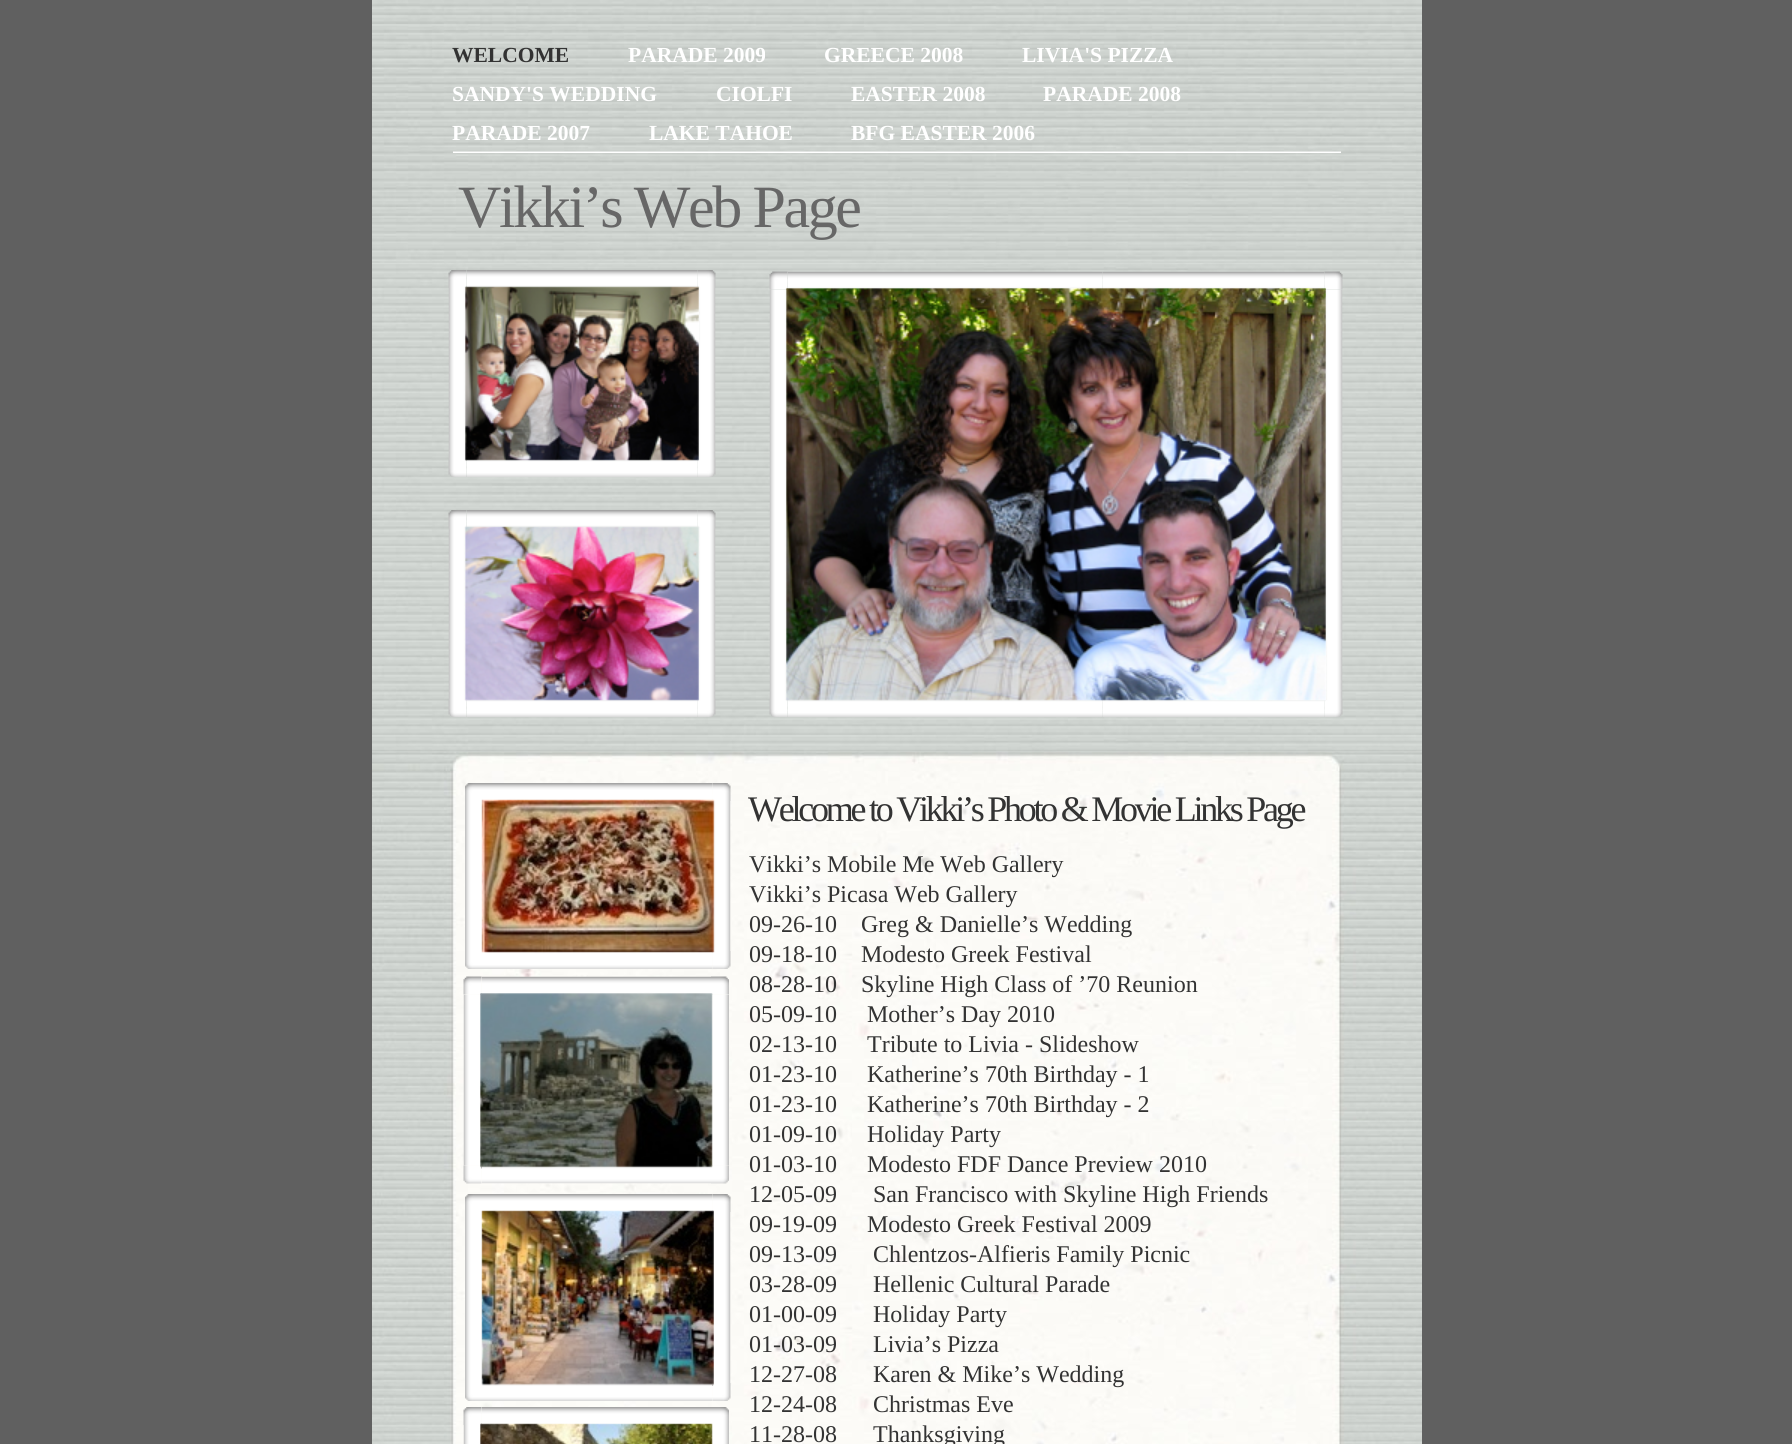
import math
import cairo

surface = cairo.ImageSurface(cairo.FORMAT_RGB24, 1792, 1444)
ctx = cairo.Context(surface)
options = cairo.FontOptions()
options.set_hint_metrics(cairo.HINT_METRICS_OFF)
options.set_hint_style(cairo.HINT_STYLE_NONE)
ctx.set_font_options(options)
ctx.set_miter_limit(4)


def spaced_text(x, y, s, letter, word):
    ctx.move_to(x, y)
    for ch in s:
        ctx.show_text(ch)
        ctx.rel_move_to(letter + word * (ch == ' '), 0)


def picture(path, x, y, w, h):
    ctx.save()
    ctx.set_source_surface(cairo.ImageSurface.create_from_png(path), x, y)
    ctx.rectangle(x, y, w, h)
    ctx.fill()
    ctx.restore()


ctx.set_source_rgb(0.376, 0.376, 0.376)
ctx.paint()
picture("img1.png", 372, 771, 1050, 673)
picture("img2.png", 372, 0, 1050, 263)
ctx.select_font_face("Liberation Serif", cairo.FONT_SLANT_NORMAL, cairo.FONT_WEIGHT_BOLD)
ctx.set_font_size(21.5)
ctx.set_source_rgb(0.2, 0.2, 0.2)
ctx.move_to(452, 62)
ctx.show_text("WELCOME")
ctx.set_source_rgb(1, 1, 1)
ctx.move_to(628, 62)
ctx.show_text("PARADE 2009")
ctx.move_to(824, 62)
ctx.show_text("GREECE 2008")
ctx.move_to(1022, 62)
ctx.show_text("LIVIA'S PIZZA")
ctx.move_to(452, 101)
ctx.show_text("SANDY'S WEDDING")
ctx.move_to(716, 101)
ctx.show_text("CIOLFI")
ctx.move_to(851, 101)
ctx.show_text("EASTER 2008")
ctx.move_to(1043, 101)
ctx.show_text("PARADE 2008")
ctx.move_to(452, 140)
ctx.show_text("PARADE 2007")
ctx.move_to(649, 140)
ctx.show_text("LAKE TAHOE")
ctx.move_to(851, 140)
ctx.show_text("BFG EASTER 2006")
picture("img3.png", 453, 151, 888, 2)
ctx.select_font_face("Liberation Serif")
ctx.set_font_size(60)
ctx.set_source_rgb(0.404, 0.404, 0.404)
spaced_text(458, 227, "Vikki’s Web Page", -2.4, 0)
picture("img36.png", 372, 751, 1050, 20)
picture("img4.png", 372, 263, 1050, 489)
picture("img13.png", 465, 286, 234, 175)
picture("img5.png", 448, 270, 19, 18)
picture("img7.png", 697, 270, 19, 18)
picture("img6.png", 466, 270, 232, 18)
picture("img8.png", 448, 288, 19, 171)
picture("img9.png", 697, 288, 19, 171)
picture("img10.png", 448, 459, 19, 18)
picture("img12.png", 697, 459, 19, 18)
picture("img11.png", 466, 459, 232, 18)
picture("img26.png", 786, 288, 540, 413)
picture("img14.png", 769, 271, 19, 19)
picture("img18.png", 769, 289, 19, 230)
picture("img15.png", 787, 271, 316, 19)
picture("img17.png", 1324, 271, 19, 19)
picture("img20.png", 1324, 289, 19, 230)
picture("img16.png", 1102, 271, 223, 19)
picture("img19.png", 769, 519, 19, 180)
picture("img21.png", 1324, 519, 19, 180)
picture("img22.png", 769, 699, 19, 18)
picture("img23.png", 787, 699, 316, 18)
picture("img25.png", 1324, 699, 19, 18)
picture("img24.png", 1102, 699, 223, 18)
picture("img35.png", 465, 526, 234, 175)
picture("img27.png", 448, 510, 19, 18)
picture("img29.png", 697, 510, 19, 18)
picture("img28.png", 466, 510, 232, 18)
picture("img30.png", 448, 528, 18, 171)
picture("img31.png", 697, 528, 19, 171)
picture("img32.png", 448, 699, 19, 18)
picture("img34.png", 697, 699, 19, 18)
picture("img33.png", 466, 699, 232, 18)
picture("img45.png", 481, 799, 235, 154)
picture("img37.png", 465, 783, 18, 18)
picture("img39.png", 712, 783, 19, 18)
picture("img38.png", 483, 783, 230, 18)
picture("img40.png", 465, 801, 18, 150)
picture("img41.png", 712, 801, 19, 150)
picture("img42.png", 465, 951, 18, 18)
picture("img44.png", 712, 951, 19, 18)
picture("img43.png", 483, 951, 230, 18)
ctx.set_font_size(36)
ctx.set_source_rgb(0.2, 0.2, 0.2)
spaced_text(748, 821, "Welcome to Vikki’s Photo & Movie Links Page", -3.25, 0)
picture("img54.png", 480, 993, 233, 176)
picture("img46.png", 463, 976, 19, 19)
picture("img51.png", 463, 1165, 19, 19)
picture("img49.png", 463, 994, 19, 172)
picture("img47.png", 481, 976, 230, 19)
picture("img48.png", 711, 976, 18, 19)
picture("img53.png", 711, 1165, 18, 19)
picture("img50.png", 711, 994, 18, 172)
picture("img52.png", 481, 1165, 230, 19)
ctx.set_font_size(24)
ctx.move_to(749, 872)
ctx.show_text("Vikki’s Mobile Me Web Gallery")
ctx.move_to(749, 902)
ctx.show_text("Vikki’s Picasa Web Gallery")
ctx.move_to(749, 932)
ctx.show_text("09-26-10    Greg & Danielle’s Wedding")
ctx.move_to(749, 962)
ctx.show_text("09-18-10    Modesto Greek Festival")
ctx.move_to(749, 992)
ctx.show_text("08-28-10    Skyline High Class of ’70 Reunion")
ctx.move_to(749, 1022)
ctx.show_text("05-09-10     Mother’s Day 2010")
ctx.move_to(749, 1052)
ctx.show_text("02-13-10     Tribute to Livia - Slideshow")
ctx.move_to(749, 1082)
ctx.show_text("01-23-10     Katherine’s 70th Birthday - 1")
ctx.move_to(749, 1112)
ctx.show_text("01-23-10     Katherine’s 70th Birthday - 2")
ctx.move_to(749, 1142)
ctx.show_text("01-09-10     Holiday Party")
ctx.move_to(749, 1172)
ctx.show_text("01-03-10     Modesto FDF Dance Preview 2010")
ctx.move_to(749, 1202)
ctx.show_text("12-05-09      San Francisco with Skyline High Friends")
ctx.move_to(749, 1232)
ctx.show_text("09-19-09     Modesto Greek Festival 2009")
ctx.move_to(749, 1262)
ctx.show_text("09-13-09      Chlentzos-Alfieris Family Picnic")
ctx.move_to(749, 1292)
ctx.show_text("03-28-09      Hellenic Cultural Parade")
ctx.move_to(749, 1322)
ctx.show_text("01-00-09      Holiday Party")
ctx.move_to(749, 1352)
ctx.show_text("01-03-09      Livia’s Pizza")
ctx.move_to(749, 1382)
ctx.show_text("12-27-08      Karen & Mike’s Wedding")
ctx.move_to(749, 1412)
ctx.show_text("12-24-08      Christmas Eve")
ctx.move_to(749, 1442)
ctx.show_text("11-28-08      Thanksgiving")
picture("img63.png", 481, 1210, 233, 176)
picture("img55.png", 465, 1194, 18, 18)
picture("img57.png", 712, 1194, 19, 18)
picture("img56.png", 483, 1194, 230, 18)
picture("img58.png", 465, 1212, 18, 171)
picture("img59.png", 712, 1212, 19, 171)
picture("img60.png", 465, 1383, 18, 18)
picture("img62.png", 712, 1383, 19, 18)
picture("img61.png", 483, 1383, 230, 18)
picture("img69.png", 480, 1423, 233, 21)
picture("img64.png", 463, 1407, 19, 18)
picture("img65.png", 481, 1407, 230, 18)
picture("img66.png", 711, 1407, 18, 18)
picture("img67.png", 463, 1425, 19, 19)
picture("img68.png", 711, 1425, 18, 19)
surface.write_to_png("page.png")
